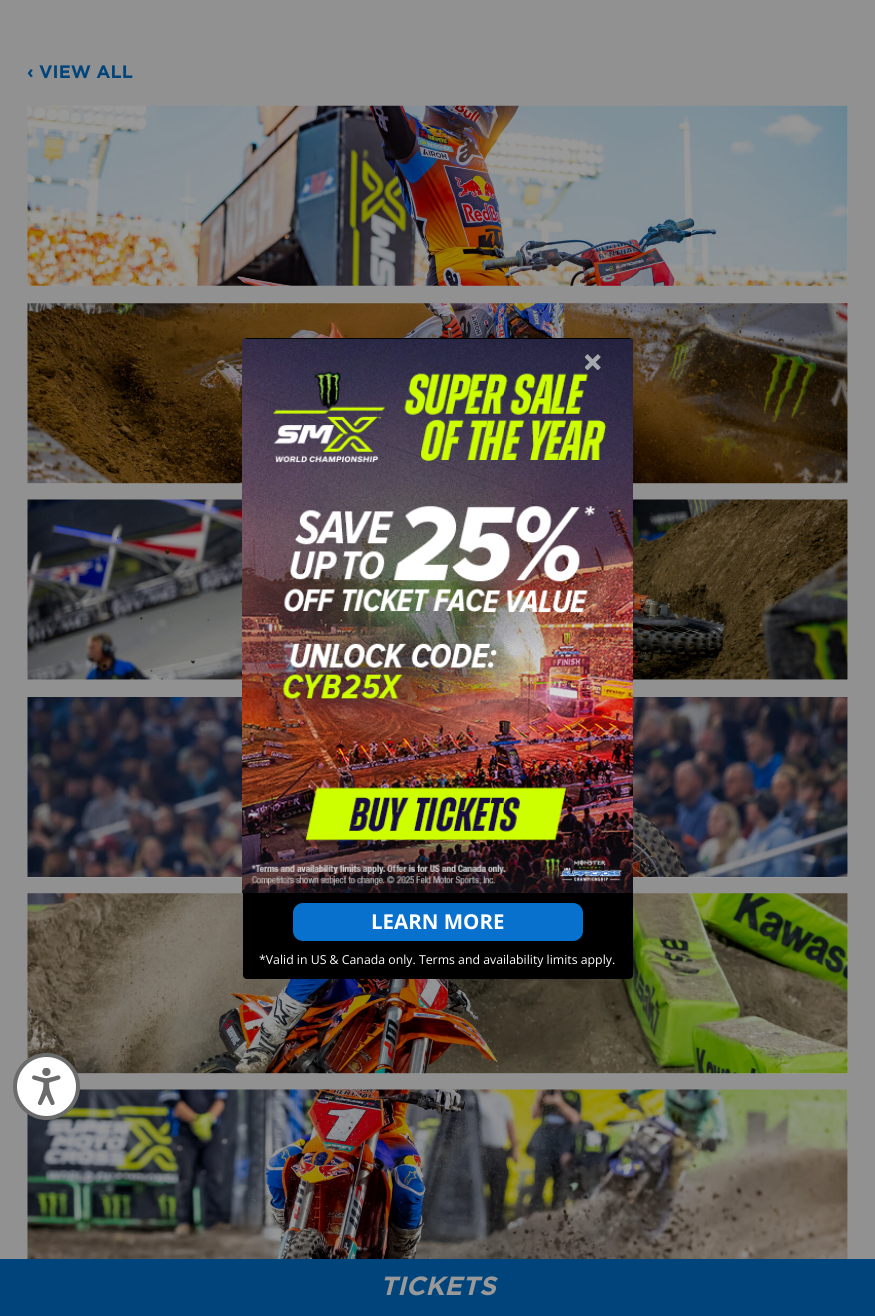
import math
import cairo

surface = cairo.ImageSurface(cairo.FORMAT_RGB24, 875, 1316)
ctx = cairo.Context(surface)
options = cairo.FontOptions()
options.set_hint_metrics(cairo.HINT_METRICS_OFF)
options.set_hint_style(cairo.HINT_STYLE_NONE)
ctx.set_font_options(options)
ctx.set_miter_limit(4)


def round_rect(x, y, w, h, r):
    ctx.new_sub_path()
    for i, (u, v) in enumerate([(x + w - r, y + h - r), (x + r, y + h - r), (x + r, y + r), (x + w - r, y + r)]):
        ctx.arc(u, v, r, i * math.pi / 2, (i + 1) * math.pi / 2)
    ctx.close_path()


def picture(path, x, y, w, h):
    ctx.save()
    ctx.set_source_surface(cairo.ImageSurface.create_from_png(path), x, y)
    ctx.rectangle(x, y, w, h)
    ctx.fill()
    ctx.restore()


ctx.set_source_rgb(0.569, 0.569, 0.569)
ctx.paint()
ctx.select_font_face("Gotham", cairo.FONT_SLANT_NORMAL, cairo.FONT_WEIGHT_BOLD)
ctx.set_font_size(18)
ctx.set_source_rgb(0, 0.267, 0.486)
ctx.move_to(27, 78)
ctx.show_text("‹ VIEW ALL")
ctx.set_source_rgb(0.6, 0.6, 0.6)
ctx.rectangle(28, 106, 820, 180)
ctx.fill()
picture("img1.png", 27, 105, 821, 181)
ctx.rectangle(28, 304, 820, 180)
ctx.fill()
picture("img2.png", 27, 303, 821, 181)
ctx.rectangle(28, 500, 820, 180)
ctx.fill()
picture("img3.png", 27, 499, 821, 181)
ctx.rectangle(28, 698, 820, 180)
ctx.fill()
picture("img4.png", 27, 697, 821, 180)
ctx.rectangle(77, 894, 771, 180)
ctx.fill()
picture("img5.png", 27, 893, 821, 181)
ctx.rectangle(847, 1090, 1, 169)
ctx.fill()
picture("img6.png", 27, 1089, 821, 170)
ctx.set_source_rgb(0, 0, 0)
round_rect(243, 338, 390, 641, 4)
ctx.fill()
picture("img7.png", 242, 339, 391, 554)
picture("img8.png", 585, 354, 16, 16)
ctx.set_source_rgb(0.035, 0.443, 0.808)
round_rect(293, 903, 290, 38, 10)
ctx.fill()
ctx.select_font_face("Open Sans", cairo.FONT_SLANT_NORMAL, cairo.FONT_WEIGHT_BOLD)
ctx.set_font_size(20.5)
ctx.set_source_rgb(1, 1, 1)
ctx.move_to(371, 929)
ctx.show_text("LEARN MORE")
ctx.select_font_face("Open Sans")
ctx.set_font_size(12.3)
ctx.move_to(259, 964)
ctx.show_text("*Valid in US & Canada only. Terms and availability limits apply.")
ctx.new_path()
ctx.arc(46.5, 1086.5, 31.5, 0, 2 * math.pi)
ctx.fill_preserve()
ctx.set_source_rgb(0.42, 0.42, 0.42)
ctx.set_line_width(4)
ctx.stroke()
picture("img9.png", 32, 1068, 29, 37)
ctx.set_source_rgb(0, 0.267, 0.486)
ctx.rectangle(0, 1259, 875, 57)
ctx.fill()
ctx.select_font_face("Gotham", cairo.FONT_SLANT_ITALIC, cairo.FONT_WEIGHT_BOLD)
ctx.set_font_size(26.25)
ctx.set_source_rgb(0.6, 0.6, 0.6)
ctx.move_to(380, 1295)
ctx.show_text("TICKETS")
surface.write_to_png("page.png")
